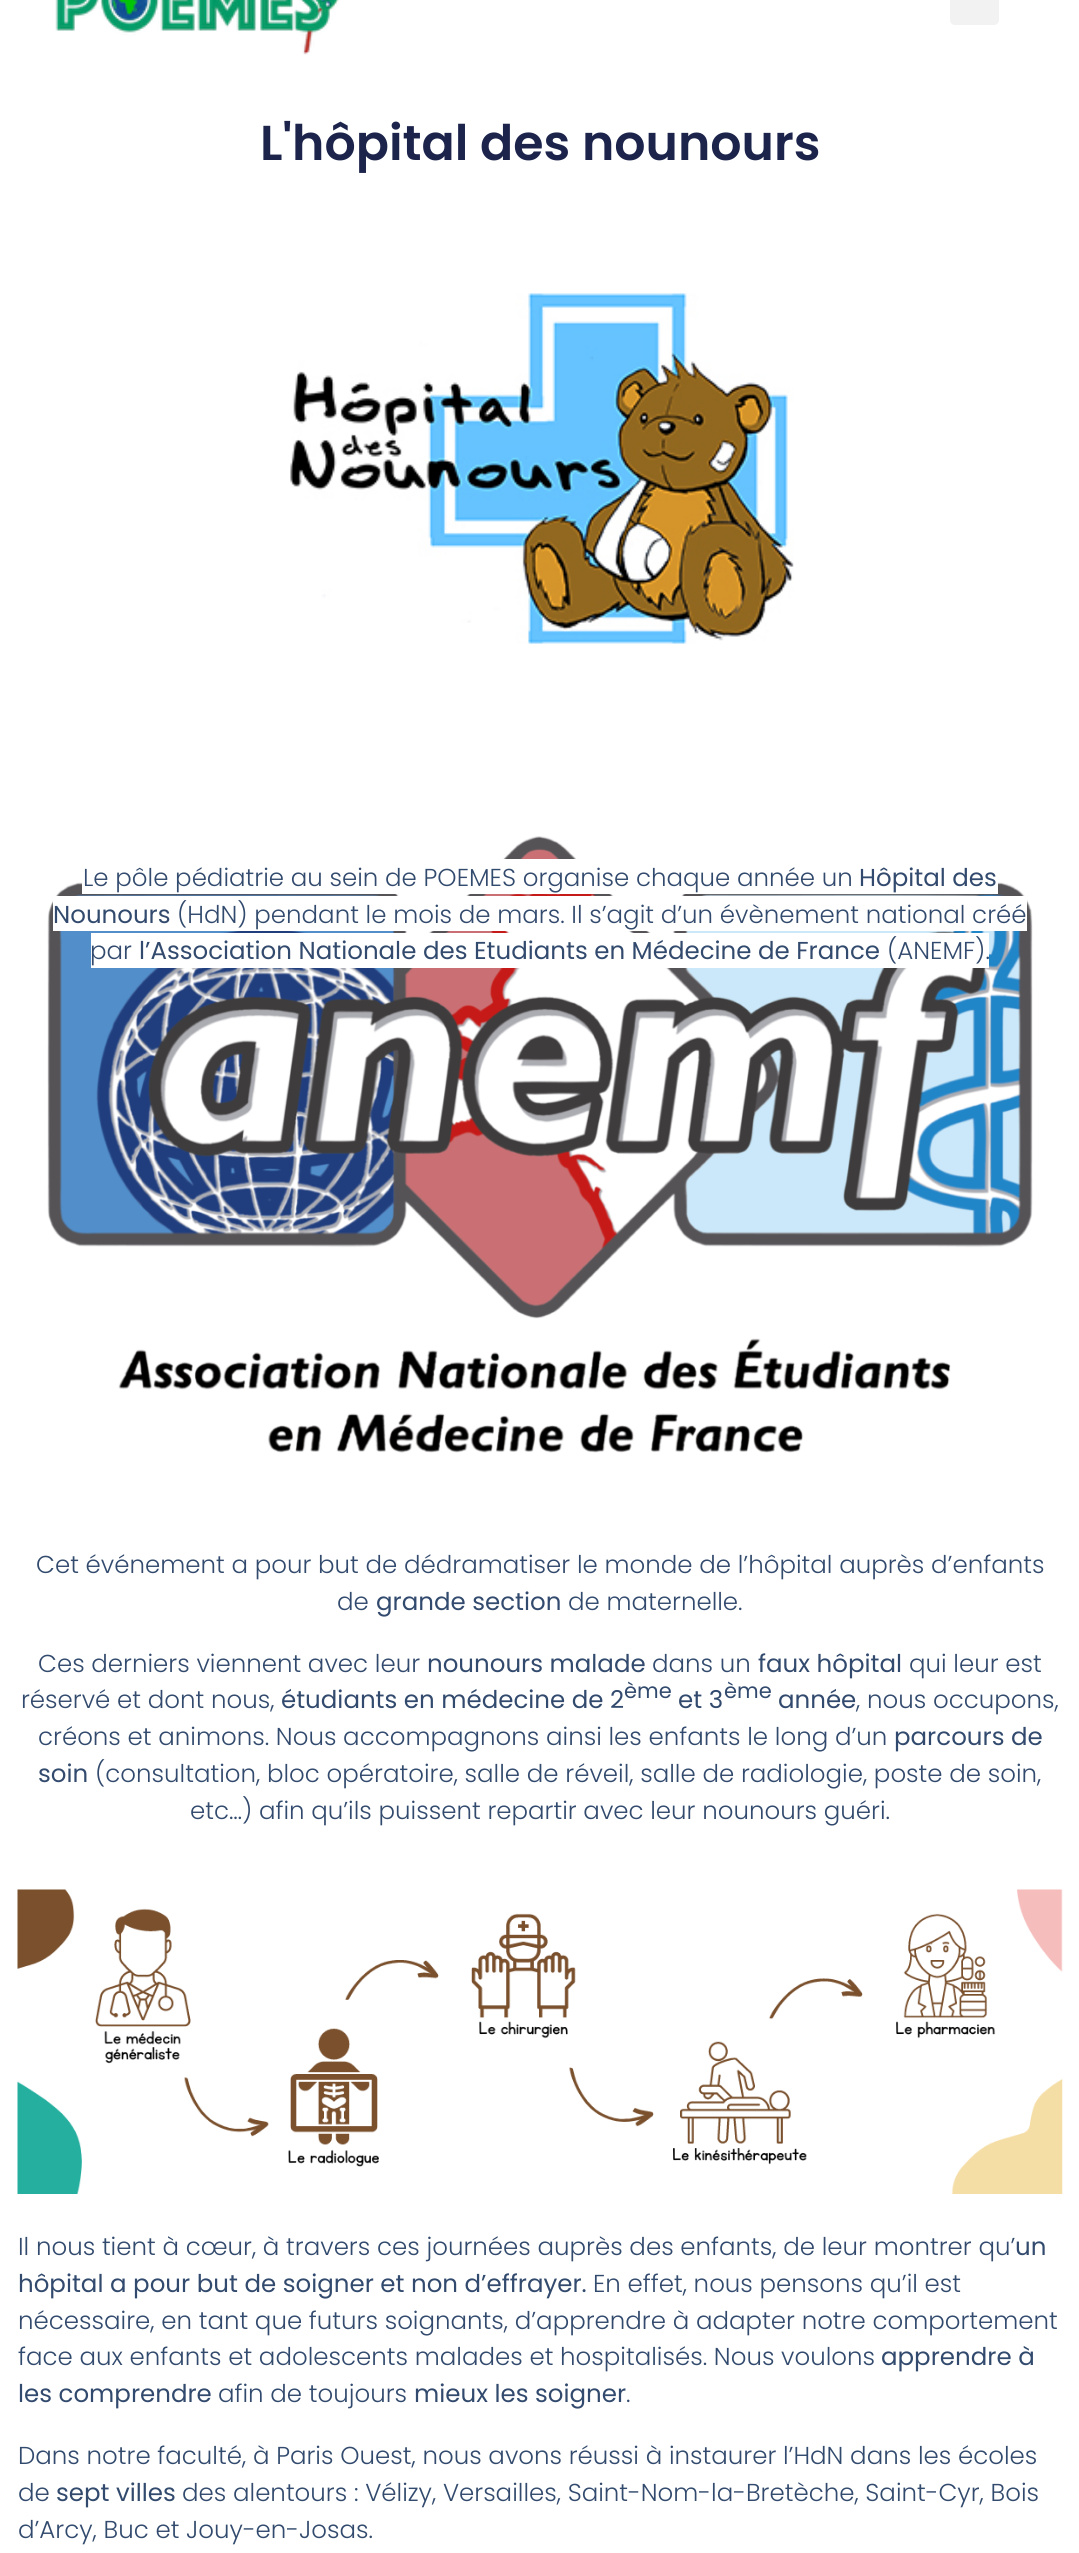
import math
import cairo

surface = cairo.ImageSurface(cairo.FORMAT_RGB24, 1079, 2553)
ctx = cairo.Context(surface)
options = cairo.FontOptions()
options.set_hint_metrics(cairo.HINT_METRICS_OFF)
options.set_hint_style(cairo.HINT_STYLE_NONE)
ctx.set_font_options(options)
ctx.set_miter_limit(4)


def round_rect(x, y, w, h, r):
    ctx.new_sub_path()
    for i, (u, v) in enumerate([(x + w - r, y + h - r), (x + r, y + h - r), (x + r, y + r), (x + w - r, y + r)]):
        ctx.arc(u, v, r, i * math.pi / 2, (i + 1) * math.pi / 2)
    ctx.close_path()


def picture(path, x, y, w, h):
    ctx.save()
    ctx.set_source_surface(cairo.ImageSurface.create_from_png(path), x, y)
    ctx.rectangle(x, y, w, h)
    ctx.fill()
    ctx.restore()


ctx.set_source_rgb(1, 1, 1)
ctx.paint()
picture("img1.png", 55, 0, 284, 55)
ctx.set_source_rgb(0.949, 0.949, 0.949)
round_rect(950, -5, 49, 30, 5)
ctx.fill()
ctx.select_font_face("Poppins SemiBold")
ctx.set_font_size(49)
ctx.set_source_rgb(0.11, 0.141, 0.294)
ctx.move_to(260, 160)
ctx.show_text("L'hôpital des nounours")
picture("img2.png", 290, 293, 504, 351)
picture("img3.png", 47, 836, 986, 617)
ctx.set_source_rgb(1, 1, 1)
ctx.rectangle(82, 859, 777, 35)
ctx.fill()
ctx.select_font_face("Poppins Light")
ctx.set_font_size(24.5)
ctx.set_source_rgb(0.196, 0.29, 0.427)
ctx.move_to(83, 886)
ctx.show_text("Le pôle pédiatrie au sein de POEMES organise chaque année un")
ctx.set_source_rgb(1, 1, 1)
ctx.rectangle(859, 882, 139, 12)
ctx.fill()
ctx.select_font_face("Poppins")
ctx.set_source_rgb(0.196, 0.29, 0.427)
ctx.move_to(859, 886)
ctx.show_text("Hôpital des")
ctx.set_source_rgb(1, 1, 1)
ctx.rectangle(53, 896, 974, 35)
ctx.fill()
ctx.set_source_rgb(0.196, 0.29, 0.427)
ctx.move_to(53, 923)
ctx.show_text("Nounours")
ctx.select_font_face("Poppins Light")
ctx.move_to(177, 923)
ctx.show_text("(HdN) pendant le mois de mars. Il s’agit d’un évènement national créé")
ctx.set_source_rgb(1, 1, 1)
ctx.rectangle(91, 933, 898, 35)
ctx.fill()
ctx.set_source_rgb(0.196, 0.29, 0.427)
ctx.move_to(90, 959)
ctx.show_text("par")
ctx.select_font_face("Poppins")
ctx.move_to(139, 959)
ctx.show_text("l’Association Nationale des Etudiants en Médecine de France")
ctx.select_font_face("Poppins Light")
ctx.move_to(887, 959)
ctx.show_text("(ANEMF).")
ctx.move_to(36, 1573)
ctx.show_text("Cet événement a pour but de dédramatiser le monde de l’hôpital auprès d’enfants")
ctx.move_to(337, 1610)
ctx.show_text("de")
ctx.select_font_face("Poppins")
ctx.move_to(376, 1610)
ctx.show_text("grande section")
ctx.select_font_face("Poppins Light")
ctx.move_to(568, 1610)
ctx.show_text("de maternelle.")
ctx.move_to(38, 1672)
ctx.show_text("Ces derniers viennent avec leur")
ctx.select_font_face("Poppins")
ctx.move_to(427, 1672)
ctx.show_text("nounours malade")
ctx.select_font_face("Poppins Light")
ctx.move_to(652, 1672)
ctx.show_text("dans un")
ctx.select_font_face("Poppins")
ctx.move_to(758, 1672)
ctx.show_text("faux hôpital")
ctx.select_font_face("Poppins Light")
ctx.move_to(909, 1672)
ctx.show_text("qui leur est")
ctx.move_to(21, 1708)
ctx.show_text("réservé et dont nous,")
ctx.select_font_face("Poppins")
ctx.move_to(281, 1708)
ctx.show_text("étudiants en médecine de 2")
ctx.set_font_size(21)
ctx.move_to(624, 1698)
ctx.show_text("ème")
ctx.set_font_size(24.5)
ctx.move_to(678, 1708)
ctx.show_text("et 3")
ctx.set_font_size(21)
ctx.move_to(724, 1698)
ctx.show_text("ème")
ctx.set_font_size(24.5)
ctx.move_to(778, 1708)
ctx.show_text("année")
ctx.select_font_face("Poppins Light")
ctx.move_to(856, 1708)
ctx.show_text(", nous occupons,")
ctx.move_to(38, 1745)
ctx.show_text("créons et animons. Nous accompagnons ainsi les enfants le long d’un")
ctx.select_font_face("Poppins")
ctx.move_to(894, 1745)
ctx.show_text("parcours de")
ctx.move_to(38, 1782)
ctx.show_text("soin")
ctx.select_font_face("Poppins Light")
ctx.move_to(95, 1782)
ctx.show_text("(consultation, bloc opératoire, salle de réveil, salle de radiologie, poste de soin,")
ctx.move_to(190, 1819)
ctx.show_text("etc…) afin qu’ils puissent repartir avec leur nounours guéri.")
picture("img4.png", 17, 1889, 1046, 305)
ctx.move_to(18, 2255)
ctx.show_text("Il nous tient à cœur, à travers ces journées auprès des enfants, de leur montrer qu’")
ctx.select_font_face("Poppins")
ctx.move_to(1015, 2255)
ctx.show_text("un")
ctx.move_to(18, 2292)
ctx.show_text("hôpital a pour but de soigner et non d’effrayer.")
ctx.select_font_face("Poppins Light")
ctx.move_to(593, 2292)
ctx.show_text("En effet, nous pensons qu’il est")
ctx.move_to(18, 2329)
ctx.show_text("nécessaire, en tant que futurs soignants, d’apprendre à adapter notre comportement")
ctx.move_to(18, 2365)
ctx.show_text("face aux enfants et adolescents malades et hospitalisés. Nous voulons")
ctx.select_font_face("Poppins")
ctx.move_to(881, 2365)
ctx.show_text("apprendre à")
ctx.move_to(18, 2402)
ctx.show_text("les comprendre")
ctx.select_font_face("Poppins Light")
ctx.move_to(218, 2402)
ctx.show_text("afin de toujours")
ctx.select_font_face("Poppins")
ctx.move_to(414, 2402)
ctx.show_text("mieux les soigner")
ctx.select_font_face("Poppins Light")
ctx.move_to(626, 2402)
ctx.show_text(".")
ctx.move_to(18, 2464)
ctx.show_text("Dans notre faculté, à Paris Ouest, nous avons réussi à instaurer l’HdN dans les écoles")
ctx.move_to(18, 2501)
ctx.show_text("de")
ctx.select_font_face("Poppins")
ctx.move_to(56, 2501)
ctx.show_text("sept villes")
ctx.select_font_face("Poppins Light")
ctx.move_to(182, 2501)
ctx.show_text("des alentours : Vélizy, Versailles, Saint-Nom-la-Bretèche, Saint-Cyr, Bois")
ctx.move_to(18, 2538)
ctx.show_text("d’Arcy, Buc et Jouy-en-Josas.")
surface.write_to_png("page.png")
